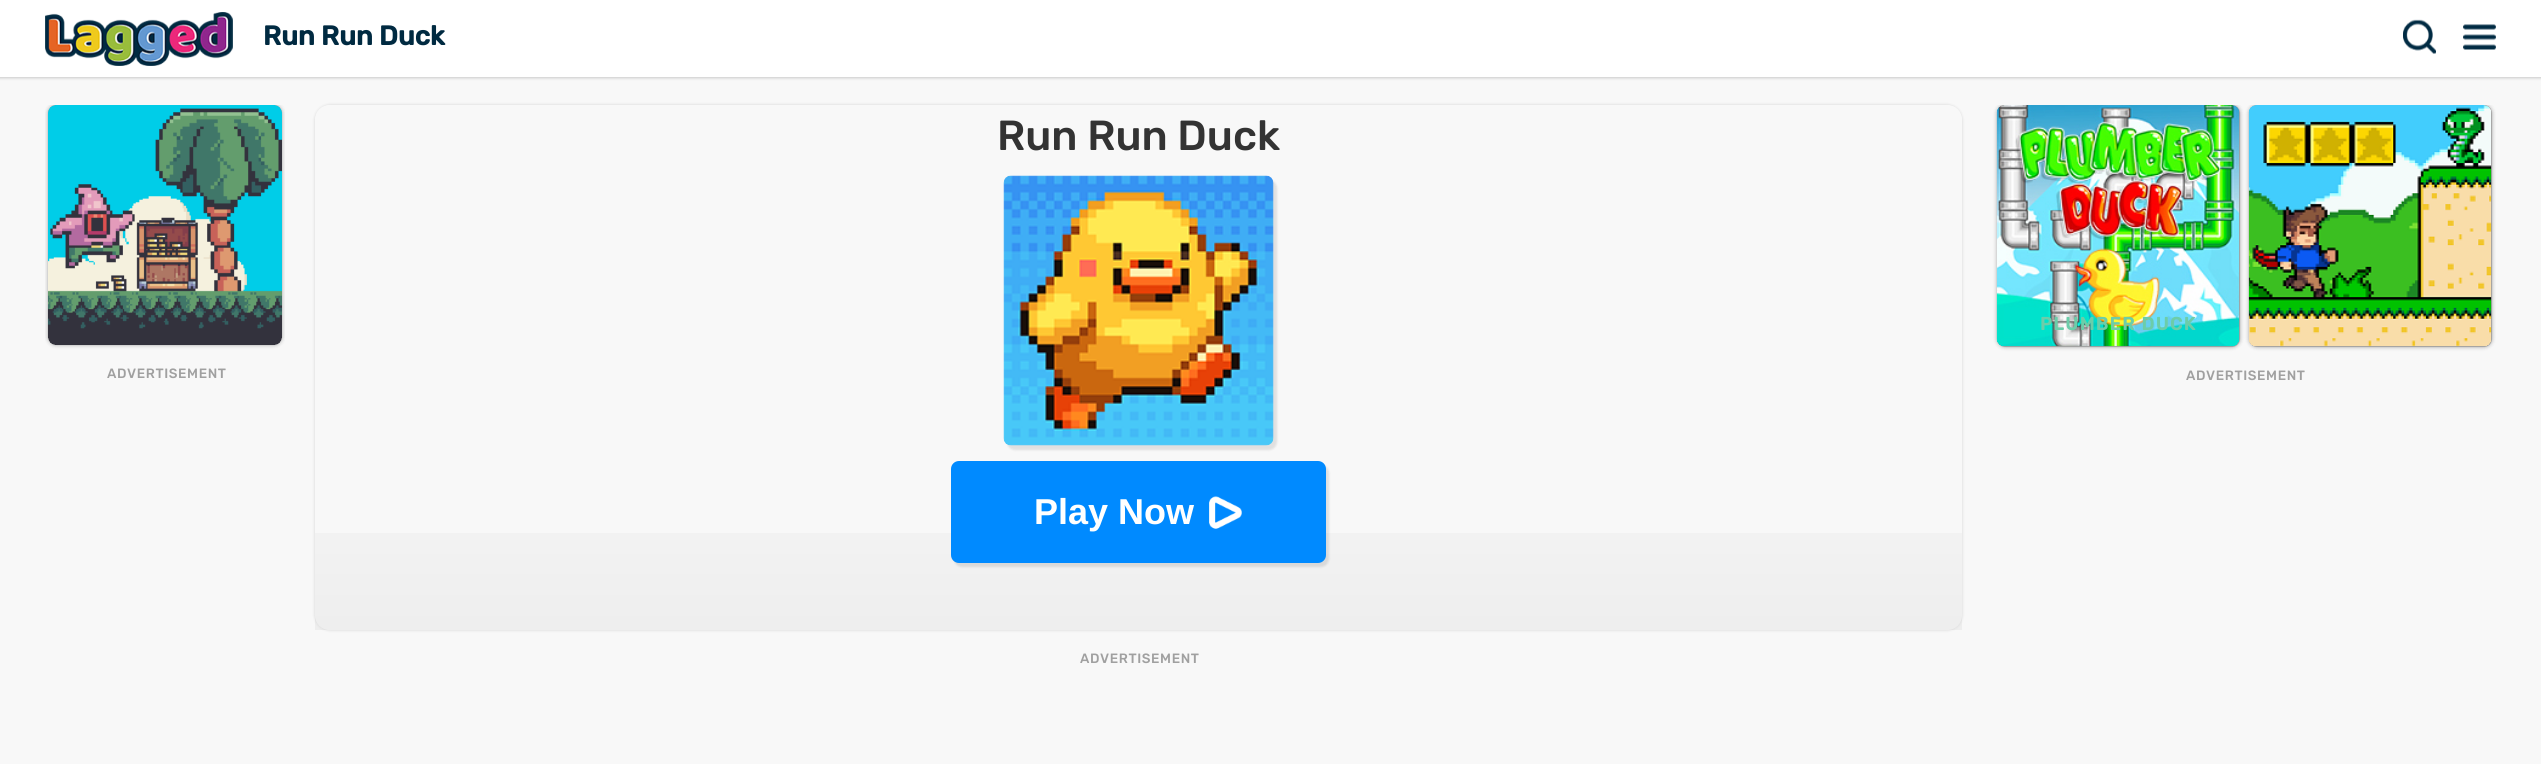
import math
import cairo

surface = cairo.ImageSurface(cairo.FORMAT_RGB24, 2541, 764)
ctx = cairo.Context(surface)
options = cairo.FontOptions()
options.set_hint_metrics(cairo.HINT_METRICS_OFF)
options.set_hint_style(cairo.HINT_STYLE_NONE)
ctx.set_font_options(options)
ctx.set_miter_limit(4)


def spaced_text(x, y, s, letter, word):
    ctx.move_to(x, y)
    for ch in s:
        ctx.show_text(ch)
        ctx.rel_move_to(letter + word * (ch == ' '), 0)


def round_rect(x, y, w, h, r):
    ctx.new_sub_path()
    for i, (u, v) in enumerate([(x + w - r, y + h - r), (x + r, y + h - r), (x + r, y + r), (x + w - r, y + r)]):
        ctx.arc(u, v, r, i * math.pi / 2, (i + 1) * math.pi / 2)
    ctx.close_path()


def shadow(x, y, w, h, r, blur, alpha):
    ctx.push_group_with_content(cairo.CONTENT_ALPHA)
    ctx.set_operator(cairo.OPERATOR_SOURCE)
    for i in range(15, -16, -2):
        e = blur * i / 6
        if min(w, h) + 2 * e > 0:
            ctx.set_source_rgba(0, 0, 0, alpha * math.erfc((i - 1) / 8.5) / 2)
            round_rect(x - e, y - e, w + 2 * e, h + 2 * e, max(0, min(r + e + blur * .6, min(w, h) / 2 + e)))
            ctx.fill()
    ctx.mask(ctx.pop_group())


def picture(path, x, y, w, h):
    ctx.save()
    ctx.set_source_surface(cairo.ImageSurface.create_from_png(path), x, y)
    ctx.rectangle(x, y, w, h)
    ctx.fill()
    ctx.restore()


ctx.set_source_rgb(0.969, 0.969, 0.969)
ctx.paint()
ctx.set_source_rgb(0, 0, 0)
shadow(-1, -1, 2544, 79, 0, 1.5, 0.2)
ctx.set_source_rgb(1, 1, 1)
ctx.rectangle(0, 0, 2541, 77)
ctx.fill()
picture("img1.png", 45, 12, 188, 54)
ctx.select_font_face("Rubik", cairo.FONT_SLANT_NORMAL, cairo.FONT_WEIGHT_BOLD)
ctx.set_font_size(27)
ctx.set_source_rgb(0, 0.165, 0.255)
ctx.move_to(263, 45)
ctx.show_text("Run Run Duck")
picture("img2.png", 2403, 19, 33, 35)
picture("img3.png", 2463, 24, 33, 26)
ctx.save()
ctx.rectangle(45, 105, 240, 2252)
ctx.clip()
ctx.set_source_rgb(0, 0, 0)
shadow(48, 105, 234, 240, 8, 2, 0.35)
ctx.restore()
ctx.set_source_rgba(0, 0, 0, 0.18)
round_rect(48, 105, 234, 240, 8)
ctx.fill()
picture("img4.png", 48, 105, 234, 240)
ctx.select_font_face("Rubik Medium")
ctx.set_font_size(13.5)
ctx.set_source_rgb(0.627, 0.627, 0.627)
spaced_text(107, 378, "ADVERTISEMENT", 0.6, 0)
ctx.save()
ctx.set_fill_rule(cairo.FILL_RULE_EVEN_ODD)
ctx.new_path()
ctx.move_to(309, 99)
ctx.line_to(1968, 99)
ctx.line_to(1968, 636)
ctx.line_to(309, 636)
ctx.close_path()
ctx.move_to(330, 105)
ctx.line_to(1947, 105)
ctx.curve_to(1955.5, 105, 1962, 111.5, 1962, 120)
ctx.line_to(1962, 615)
ctx.curve_to(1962, 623.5, 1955.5, 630, 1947, 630)
ctx.line_to(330, 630)
ctx.curve_to(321.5, 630, 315, 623.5, 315, 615)
ctx.line_to(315, 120)
ctx.curve_to(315, 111.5, 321.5, 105, 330, 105)
ctx.close_path()
ctx.clip()
ctx.set_source_rgb(0, 0, 0)
shadow(315, 105, 1647, 525, 15, 1.5, 0.15)
ctx.restore()
gradient = cairo.LinearGradient(1139, 105, 1139, 630)
gradient.add_color_stop_rgba(0.6, 0, 0, 0, 0)
gradient.add_color_stop_rgba(1, 0, 0, 0, 0.04)
ctx.set_source(gradient)
ctx.rectangle(315, 533, 1647, 97)
ctx.fill()
ctx.set_font_size(42)
ctx.set_source_rgb(0.2, 0.2, 0.2)
ctx.move_to(997, 150)
ctx.show_text("Run Run Duck")
ctx.set_source_rgb(0, 0, 0)
shadow(1007, 180, 270, 270, 8, 1, 0.1)
picture("img5.png", 1003, 175, 271, 271)
shadow(954, 465, 375, 102, 8, 1, 0.1)
ctx.set_source_rgb(0, 0.541, 1)
round_rect(951, 461, 375, 102, 8)
ctx.fill()
ctx.select_font_face("Liberation Sans", cairo.FONT_SLANT_NORMAL, cairo.FONT_WEIGHT_BOLD)
ctx.set_font_size(36)
ctx.set_source_rgb(1, 1, 1)
ctx.move_to(1034, 524)
ctx.show_text("Play Now")
picture("img6.png", 1209, 496, 33, 33)
ctx.select_font_face("Rubik Medium")
ctx.set_font_size(13.5)
ctx.set_source_rgb(0.627, 0.627, 0.627)
spaced_text(1080, 663, "ADVERTISEMENT", 0.6, 0)
ctx.save()
ctx.rectangle(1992, 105, 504, 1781)
ctx.clip()
ctx.set_source_rgb(0, 0, 0)
shadow(1997, 105, 243, 242, 8, 2, 0.35)
ctx.restore()
ctx.set_source_rgba(0, 0, 0, 0.18)
round_rect(1997, 105, 243, 242, 8)
ctx.fill()
picture("img7.png", 1996, 105, 244, 242)
ctx.select_font_face("Rubik", cairo.FONT_SLANT_NORMAL, cairo.FONT_WEIGHT_BOLD)
ctx.set_font_size(18)
ctx.set_source_rgb(0.424, 0.804, 0.663)
spaced_text(2040, 330, "PLUMBER DUCK", 1.5, 0)
ctx.save()
ctx.rectangle(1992, 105, 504, 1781)
ctx.clip()
ctx.set_source_rgb(0, 0, 0)
shadow(2249, 105, 243, 242, 8, 2, 0.35)
ctx.restore()
ctx.set_source_rgba(0, 0, 0, 0.18)
round_rect(2249, 105, 243, 242, 8)
ctx.fill()
picture("img8.png", 2248, 105, 244, 242)
ctx.select_font_face("Rubik Medium")
ctx.set_font_size(13.5)
ctx.set_source_rgb(0.627, 0.627, 0.627)
spaced_text(2186, 380, "ADVERTISEMENT", 0.6, 0)
surface.write_to_png("page.png")
